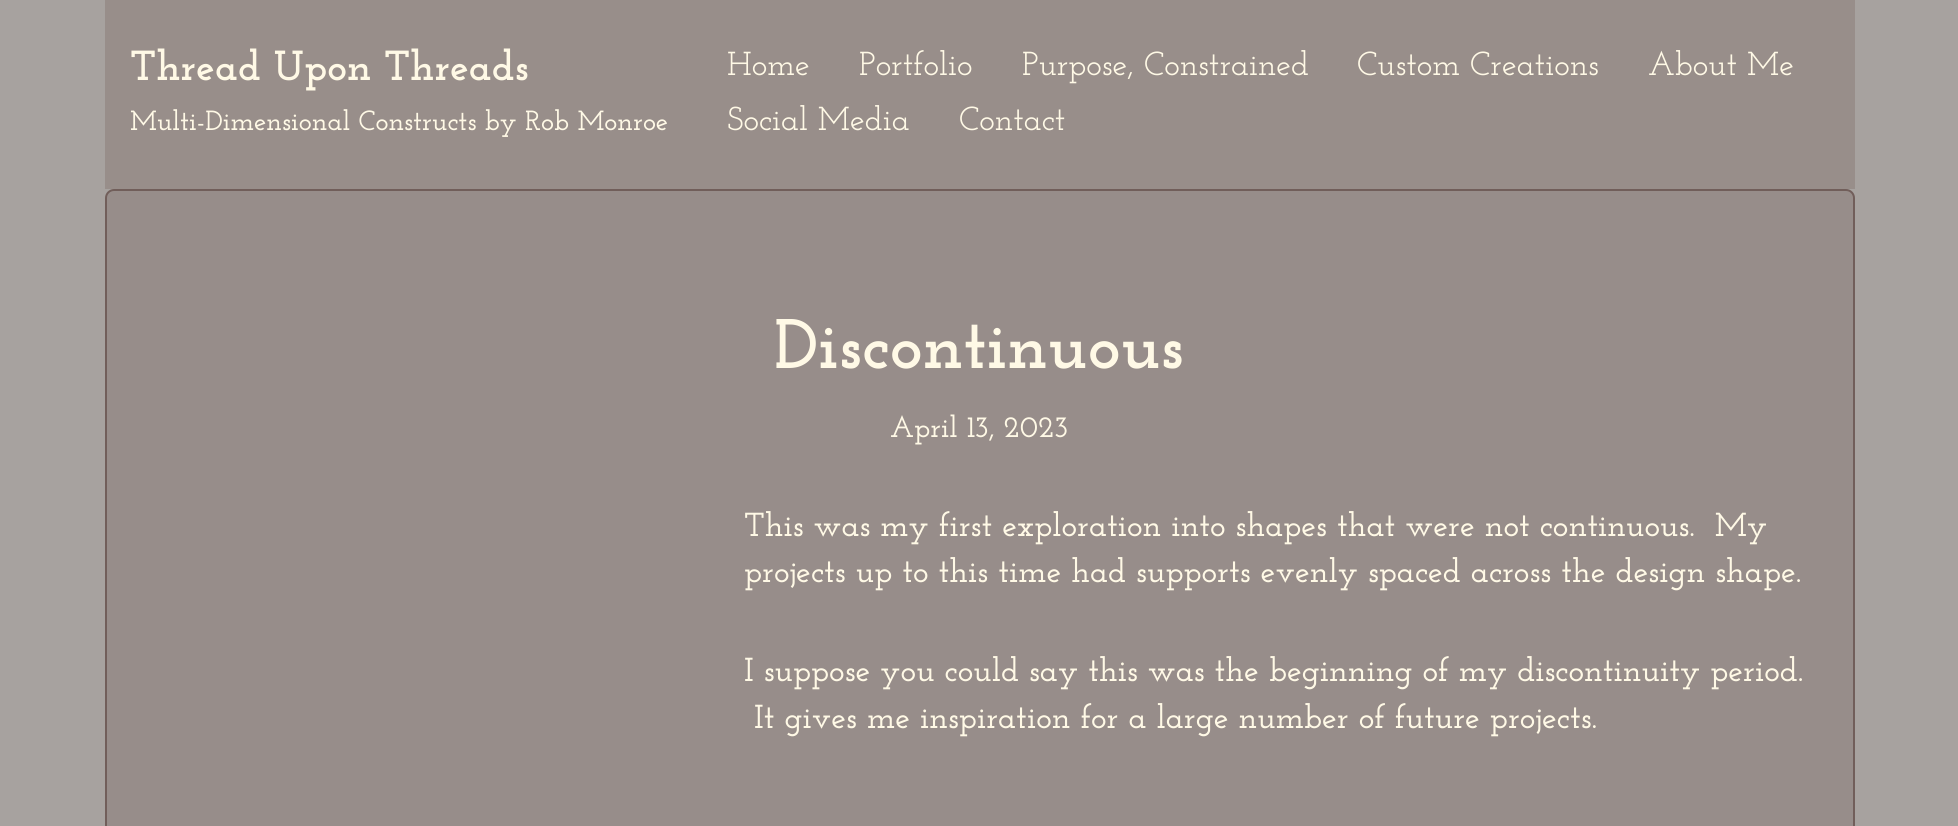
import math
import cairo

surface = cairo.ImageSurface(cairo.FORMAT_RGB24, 1958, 826)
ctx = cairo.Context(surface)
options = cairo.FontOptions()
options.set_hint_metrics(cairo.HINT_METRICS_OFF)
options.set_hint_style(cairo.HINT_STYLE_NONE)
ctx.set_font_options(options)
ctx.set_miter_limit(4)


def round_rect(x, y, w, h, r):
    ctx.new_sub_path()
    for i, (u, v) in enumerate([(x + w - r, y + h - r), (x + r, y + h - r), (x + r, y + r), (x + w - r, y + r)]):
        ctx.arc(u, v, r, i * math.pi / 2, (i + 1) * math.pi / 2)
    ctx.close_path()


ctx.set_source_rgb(0.655, 0.635, 0.624)
ctx.paint()
ctx.set_source_rgb(0.596, 0.557, 0.541)
ctx.rectangle(105, 0, 1750, 189)
ctx.fill()
ctx.select_font_face("Josefin Slab", cairo.FONT_SLANT_NORMAL, cairo.FONT_WEIGHT_BOLD)
ctx.set_font_size(42)
ctx.set_source_rgb(1, 0.973, 0.902)
ctx.move_to(130, 80)
ctx.show_text("Thread Upon Threads")
ctx.select_font_face("Josefin Slab SemiBold")
ctx.set_font_size(27.75)
ctx.move_to(130, 130)
ctx.show_text("Multi-Dimensional Constructs by Rob Monroe")
ctx.select_font_face("Josefin Slab Medium")
ctx.set_font_size(33.25)
ctx.move_to(727, 75)
ctx.show_text("Home")
ctx.move_to(859, 75)
ctx.show_text("Portfolio")
ctx.move_to(1022, 75)
ctx.show_text("Purpose, Constrained")
ctx.move_to(1357, 75)
ctx.show_text("Custom Creations")
ctx.move_to(1648, 75)
ctx.show_text("About Me")
ctx.move_to(727, 130)
ctx.show_text("Social Media")
ctx.move_to(959, 130)
ctx.show_text("Contact")
ctx.set_source_rgb(0.592, 0.553, 0.541)
round_rect(106, 190, 1748, 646, 8)
ctx.fill_preserve()
ctx.set_source_rgb(0.443, 0.369, 0.353)
ctx.stroke()
ctx.select_font_face("Josefin Slab", cairo.FONT_SLANT_NORMAL, cairo.FONT_WEIGHT_BOLD)
ctx.set_font_size(70)
ctx.set_source_rgb(1, 0.973, 0.902)
ctx.move_to(774, 368)
ctx.show_text("Discontinuous")
ctx.select_font_face("Josefin Slab SemiBold")
ctx.set_font_size(30)
ctx.move_to(890, 437)
ctx.show_text("April 13, 2023")
ctx.set_font_size(33.25)
ctx.move_to(744, 536)
ctx.show_text("This was my first exploration into shapes that were not continuous.  My")
ctx.move_to(744, 582)
ctx.show_text("projects up to this time had supports evenly spaced across the design shape.")
ctx.move_to(744, 681)
ctx.show_text("I suppose you could say this was the beginning of my discontinuity period.")
ctx.move_to(754, 728)
ctx.show_text("It gives me inspiration for a large number of future projects.")
surface.write_to_png("page.png")
